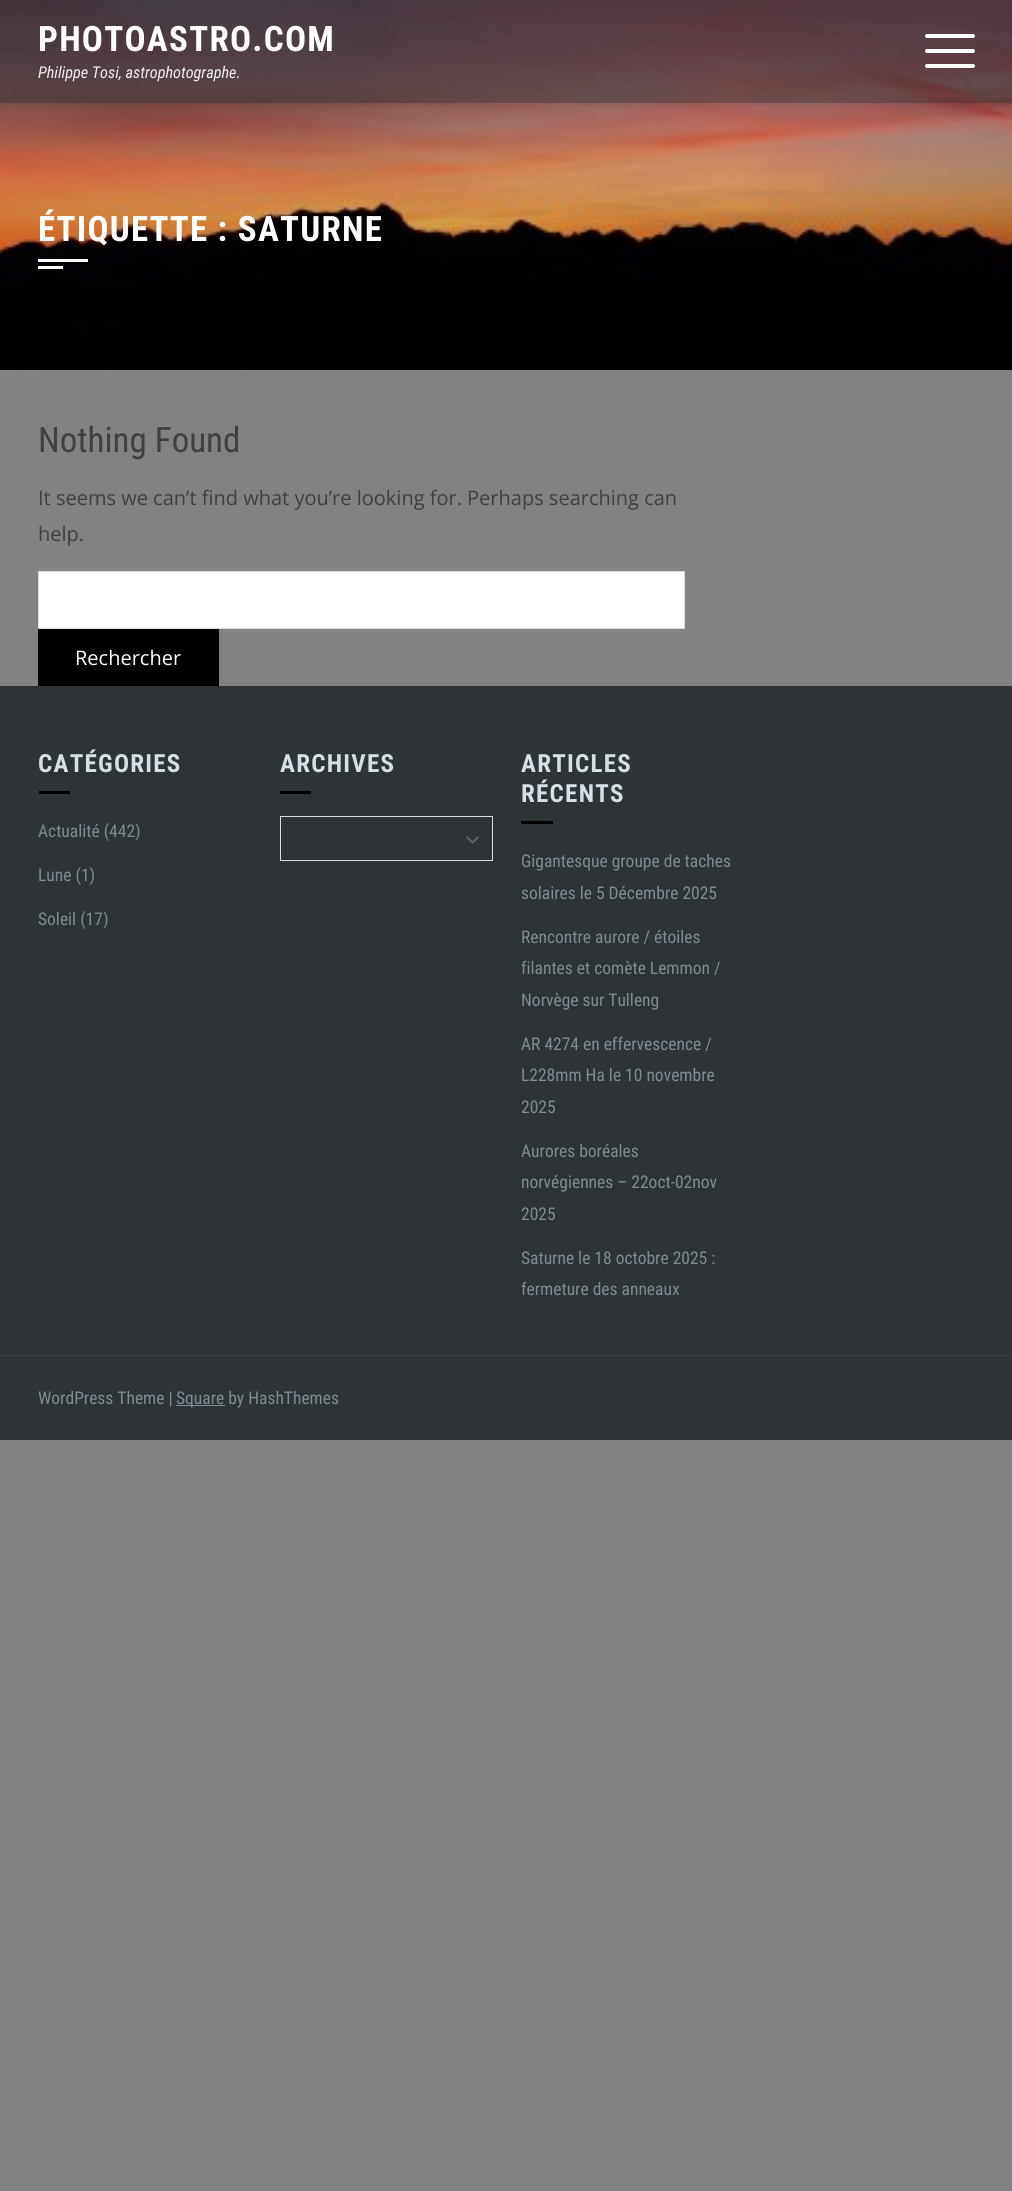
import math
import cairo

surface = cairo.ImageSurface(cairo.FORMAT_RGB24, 1012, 2191)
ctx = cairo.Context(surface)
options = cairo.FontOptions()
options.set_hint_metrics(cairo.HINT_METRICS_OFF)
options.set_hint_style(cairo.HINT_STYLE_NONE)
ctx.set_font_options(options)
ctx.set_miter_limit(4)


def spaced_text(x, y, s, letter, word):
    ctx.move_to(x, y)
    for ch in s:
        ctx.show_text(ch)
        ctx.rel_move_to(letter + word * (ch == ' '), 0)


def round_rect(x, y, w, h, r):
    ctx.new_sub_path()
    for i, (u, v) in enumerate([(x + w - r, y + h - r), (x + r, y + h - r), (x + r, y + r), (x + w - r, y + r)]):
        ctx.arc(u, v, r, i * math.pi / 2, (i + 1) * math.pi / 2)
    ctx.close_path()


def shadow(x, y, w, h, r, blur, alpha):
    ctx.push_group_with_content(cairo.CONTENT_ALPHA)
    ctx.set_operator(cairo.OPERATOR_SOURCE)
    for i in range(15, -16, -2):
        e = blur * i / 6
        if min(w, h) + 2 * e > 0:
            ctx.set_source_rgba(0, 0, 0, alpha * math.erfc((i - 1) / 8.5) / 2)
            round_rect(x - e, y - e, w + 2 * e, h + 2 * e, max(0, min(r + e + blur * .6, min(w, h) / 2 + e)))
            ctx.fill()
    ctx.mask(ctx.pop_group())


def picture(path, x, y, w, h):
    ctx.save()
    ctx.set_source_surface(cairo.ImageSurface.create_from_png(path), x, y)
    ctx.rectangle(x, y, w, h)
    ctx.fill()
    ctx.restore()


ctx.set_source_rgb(0.51, 0.51, 0.51)
ctx.paint()
picture("img1.png", 0, 0, 1012, 370)
ctx.save()
ctx.set_fill_rule(cairo.FILL_RULE_EVEN_ODD)
ctx.new_path()
ctx.move_to(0, 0)
ctx.line_to(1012, 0)
ctx.line_to(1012, 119)
ctx.line_to(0, 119)
ctx.close_path()
ctx.move_to(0, 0)
ctx.line_to(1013, 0)
ctx.line_to(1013, 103)
ctx.line_to(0, 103)
ctx.close_path()
ctx.clip()
ctx.set_source_rgb(0, 0, 0)
shadow(0, 0, 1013, 103, 0, 5, 0.2)
ctx.restore()
ctx.set_source_rgba(0.118, 0.141, 0.165, 0.4)
ctx.rectangle(0, 0, 1012, 103)
ctx.fill()
ctx.select_font_face("Roboto Condensed", cairo.FONT_SLANT_NORMAL, cairo.FONT_WEIGHT_BOLD)
ctx.set_font_size(35)
ctx.set_source_rgb(1, 1, 1)
spaced_text(38, 51, "PHOTOASTRO.COM", 1.25, 0)
ctx.select_font_face("Roboto Condensed", cairo.FONT_SLANT_ITALIC)
ctx.set_font_size(16.25)
ctx.set_source_rgb(0.933, 0.933, 0.933)
ctx.move_to(38, 78)
ctx.show_text("Philippe Tosi, astrophotographe.")
ctx.set_source_rgb(1, 1, 1)
round_rect(925, 49, 50, 4, 2)
ctx.fill()
round_rect(925, 34, 50, 4, 2)
ctx.fill()
round_rect(925, 64, 50, 4, 2)
ctx.fill()
ctx.select_font_face("Roboto Condensed", cairo.FONT_SLANT_NORMAL, cairo.FONT_WEIGHT_BOLD)
ctx.set_font_size(35)
spaced_text(38, 241, "ÉTIQUETTE : SATURNE", 1.25, 0)
ctx.rectangle(38, 259, 50, 3)
ctx.fill()
ctx.rectangle(38, 266, 25, 3)
ctx.fill()
ctx.select_font_face("Roboto Condensed")
ctx.set_source_rgb(0.251, 0.251, 0.251)
ctx.move_to(38, 452)
ctx.show_text("Nothing Found")
ctx.select_font_face("Open Sans")
ctx.set_font_size(20)
ctx.move_to(38, 505)
ctx.show_text("It seems we can’t find what you’re looking for. Perhaps searching can")
ctx.move_to(38, 541)
ctx.show_text("help.")
ctx.set_source_rgb(1, 1, 1)
ctx.rectangle(38.5, 571.5, 646, 57)
ctx.fill_preserve()
ctx.set_source_rgb(0.867, 0.867, 0.867)
ctx.set_line_width(1)
ctx.stroke()
ctx.set_source_rgb(0, 0, 0)
ctx.rectangle(38, 629, 181, 57)
ctx.fill()
ctx.set_source_rgb(1, 1, 1)
ctx.move_to(75, 665)
ctx.show_text("Rechercher")
ctx.set_source_rgb(0.18, 0.2, 0.212)
ctx.rectangle(0, 686, 1012, 754)
ctx.fill()
ctx.set_source_rgb(0.224, 0.247, 0.259)
ctx.rectangle(0, 1355, 1012, 1)
ctx.fill()
ctx.select_font_face("Roboto Condensed", cairo.FONT_SLANT_NORMAL, cairo.FONT_WEIGHT_BOLD)
ctx.set_font_size(25)
ctx.set_source_rgb(0.835, 0.875, 0.898)
spaced_text(38, 772, "CATÉGORIES", 1.25, 0)
ctx.set_source_rgb(0, 0, 0)
ctx.rectangle(39, 791, 31, 3)
ctx.fill()
ctx.select_font_face("Roboto Condensed")
ctx.set_font_size(17.5)
ctx.set_source_rgb(0.494, 0.545, 0.576)
ctx.move_to(38, 837)
ctx.show_text("Actualité (442)")
ctx.move_to(38, 881)
ctx.show_text("Lune (1)")
ctx.move_to(38, 925)
ctx.show_text("Soleil (17)")
ctx.select_font_face("Roboto Condensed", cairo.FONT_SLANT_NORMAL, cairo.FONT_WEIGHT_BOLD)
ctx.set_font_size(25)
ctx.set_source_rgb(0.835, 0.875, 0.898)
spaced_text(280, 772, "ARCHIVES", 1.25, 0)
ctx.set_source_rgb(0, 0, 0)
ctx.rectangle(280, 791, 31, 3)
ctx.fill()
picture("img2.png", 466, 836, 13, 8)
ctx.rectangle(280.5, 816.5, 212, 44)
ctx.set_source_rgb(0.867, 0.867, 0.867)
ctx.stroke()
ctx.set_source_rgb(0.835, 0.875, 0.898)
spaced_text(521, 772, "ARTICLES", 1.25, 0)
spaced_text(521, 802, "RÉCENTS", 1.25, 0)
ctx.set_source_rgb(0, 0, 0)
ctx.rectangle(521, 821, 32, 3)
ctx.fill()
ctx.select_font_face("Roboto Condensed")
ctx.set_font_size(17.5)
ctx.set_source_rgb(0.494, 0.545, 0.576)
ctx.move_to(521, 867)
ctx.show_text("Gigantesque groupe de taches")
ctx.move_to(521, 899)
ctx.show_text("solaires le 5 Décembre 2025")
ctx.move_to(521, 943)
ctx.show_text("Rencontre aurore / étoiles")
ctx.move_to(521, 974)
ctx.show_text("filantes et comète Lemmon /")
ctx.move_to(521, 1006)
ctx.show_text("Norvège sur Tulleng")
ctx.move_to(521, 1050)
ctx.show_text("AR 4274 en effervescence /")
ctx.move_to(521, 1081)
ctx.show_text("L228mm Ha le 10 novembre")
ctx.move_to(521, 1113)
ctx.show_text("2025")
ctx.move_to(521, 1157)
ctx.show_text("Aurores boréales")
ctx.move_to(521, 1188)
ctx.show_text("norvégiennes – 22oct-02nov")
ctx.move_to(521, 1220)
ctx.show_text("2025")
ctx.move_to(521, 1264)
ctx.show_text("Saturne le 18 octobre 2025 :")
ctx.move_to(521, 1295)
ctx.show_text("fermeture des anneaux")
ctx.move_to(38, 1404)
ctx.show_text("WordPress Theme |")
ctx.rectangle(176, 1405, 49, 1)
ctx.fill()
ctx.move_to(176, 1404)
ctx.show_text("Square by HashThemes")
surface.write_to_png("page.png")
